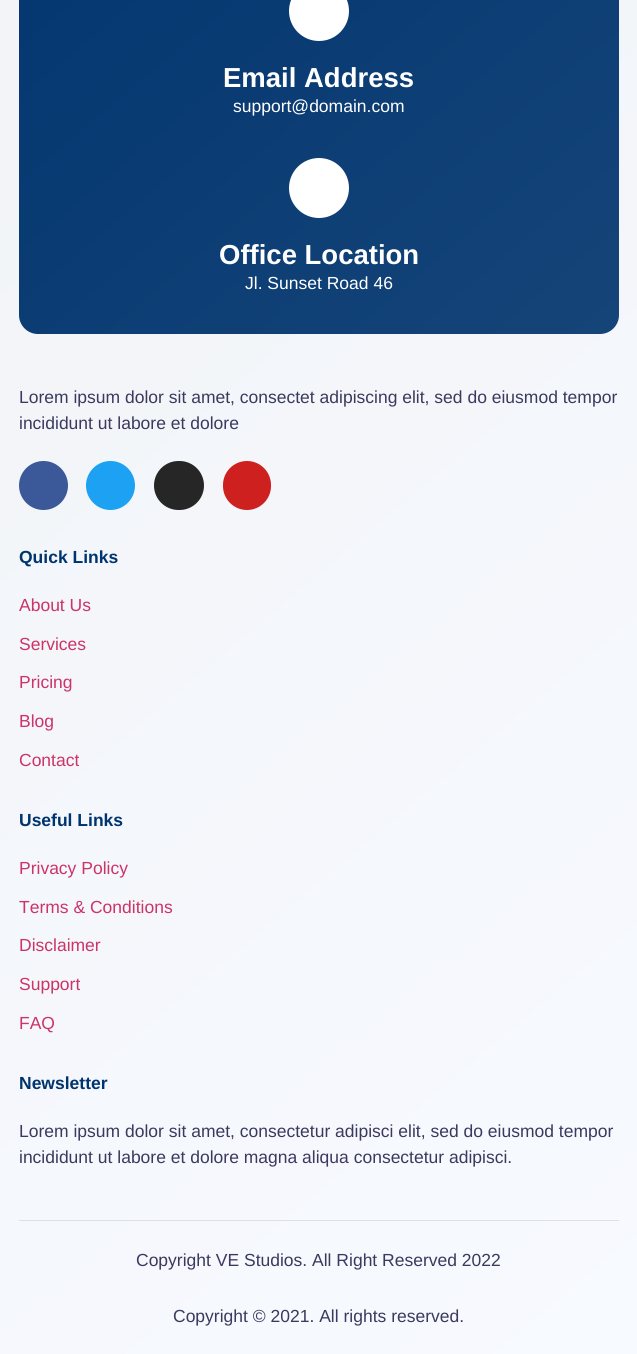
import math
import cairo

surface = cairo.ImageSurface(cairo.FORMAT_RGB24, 637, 1354)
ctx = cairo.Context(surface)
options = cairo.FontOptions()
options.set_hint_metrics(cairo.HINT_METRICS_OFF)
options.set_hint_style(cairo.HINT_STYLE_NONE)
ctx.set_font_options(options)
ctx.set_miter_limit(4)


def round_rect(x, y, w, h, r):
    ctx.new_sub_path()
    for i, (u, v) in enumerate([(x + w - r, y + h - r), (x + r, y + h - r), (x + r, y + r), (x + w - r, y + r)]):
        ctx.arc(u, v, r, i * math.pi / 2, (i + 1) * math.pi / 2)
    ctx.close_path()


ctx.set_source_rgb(1, 1, 1)
ctx.paint()
gradient = cairo.LinearGradient(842, 1184, -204, -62)
gradient.add_color_stop_rgba(0, 0.969, 0.98, 1, 1)
gradient.add_color_stop_rgba(1, 0.945, 0.953, 0.965, 1)
ctx.set_source(gradient)
ctx.rectangle(0, 0, 637, 1354)
ctx.fill()
gradient = cairo.LinearGradient(582, 364, 55, -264)
gradient.add_color_stop_rgba(0, 0.082, 0.267, 0.471, 1)
gradient.add_color_stop_rgba(1, 0, 0.204, 0.435, 1)
ctx.set_source(gradient)
round_rect(19, -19, 600, 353, 19)
ctx.fill()
ctx.set_source_rgb(1, 1, 1)
ctx.arc(319, 11, 30, 0, 2 * math.pi)
ctx.fill()
ctx.select_font_face("Liberation Sans", cairo.FONT_SLANT_NORMAL, cairo.FONT_WEIGHT_BOLD)
ctx.set_font_size(27.5)
ctx.move_to(223, 87)
ctx.show_text("Email Address")
ctx.select_font_face("Liberation Sans")
ctx.set_font_size(17.5)
ctx.move_to(233, 112)
ctx.show_text("support@domain.com")
ctx.new_path()
ctx.arc(319, 188, 30, 0, 2 * math.pi)
ctx.fill()
ctx.select_font_face("Liberation Sans", cairo.FONT_SLANT_NORMAL, cairo.FONT_WEIGHT_BOLD)
ctx.set_font_size(27.5)
ctx.move_to(219, 264)
ctx.show_text("Office Location")
ctx.select_font_face("Liberation Sans")
ctx.set_font_size(17.5)
ctx.move_to(245, 289)
ctx.show_text("Jl. Sunset Road 46")
ctx.set_source_rgb(0.227, 0.227, 0.369)
ctx.move_to(19, 403)
ctx.show_text("Lorem ipsum dolor sit amet, consectet adipiscing elit, sed do eiusmod tempor")
ctx.move_to(19, 429)
ctx.show_text("incididunt ut labore et dolore")
ctx.set_source_rgb(0.231, 0.349, 0.596)
ctx.new_path()
ctx.arc(43.5, 485.5, 24.5, 0, 2 * math.pi)
ctx.fill()
ctx.set_source_rgb(0.114, 0.631, 0.949)
ctx.arc(110.5, 485.5, 24.5, 0, 2 * math.pi)
ctx.fill()
ctx.set_source_rgb(0.149, 0.149, 0.149)
round_rect(154, 461, 50, 49, 24.5)
ctx.fill()
ctx.set_source_rgb(0.804, 0.125, 0.122)
round_rect(223, 461, 48, 49, 24)
ctx.fill()
ctx.select_font_face("Liberation Sans", cairo.FONT_SLANT_NORMAL, cairo.FONT_WEIGHT_BOLD)
ctx.set_source_rgb(0, 0.204, 0.435)
ctx.move_to(19, 563)
ctx.show_text("Quick Links")
ctx.select_font_face("Liberation Sans")
ctx.set_source_rgb(0.8, 0.2, 0.4)
ctx.move_to(19, 611)
ctx.show_text("About Us")
ctx.move_to(19, 650)
ctx.show_text("Services")
ctx.move_to(19, 688)
ctx.show_text("Pricing")
ctx.move_to(19, 727)
ctx.show_text("Blog")
ctx.move_to(19, 766)
ctx.show_text("Contact")
ctx.select_font_face("Liberation Sans", cairo.FONT_SLANT_NORMAL, cairo.FONT_WEIGHT_BOLD)
ctx.set_source_rgb(0, 0.204, 0.435)
ctx.move_to(19, 826)
ctx.show_text("Useful Links")
ctx.select_font_face("Liberation Sans")
ctx.set_source_rgb(0.8, 0.2, 0.4)
ctx.move_to(19, 874)
ctx.show_text("Privacy Policy")
ctx.move_to(19, 913)
ctx.show_text("Terms & Conditions")
ctx.move_to(19, 951)
ctx.show_text("Disclaimer")
ctx.move_to(19, 990)
ctx.show_text("Support")
ctx.move_to(19, 1029)
ctx.show_text("FAQ")
ctx.select_font_face("Liberation Sans", cairo.FONT_SLANT_NORMAL, cairo.FONT_WEIGHT_BOLD)
ctx.set_source_rgb(0, 0.204, 0.435)
ctx.move_to(19, 1089)
ctx.show_text("Newsletter")
ctx.select_font_face("Liberation Sans")
ctx.set_source_rgb(0.227, 0.227, 0.369)
ctx.move_to(19, 1137)
ctx.show_text("Lorem ipsum dolor sit amet, consectetur adipisci elit, sed do eiusmod tempor")
ctx.move_to(19, 1163)
ctx.show_text("incididunt ut labore et dolore magna aliqua consectetur adipisci.")
ctx.set_source_rgb(0.867, 0.878, 0.894)
ctx.rectangle(19, 1220, 600, 1)
ctx.fill()
ctx.set_source_rgb(0.227, 0.227, 0.369)
ctx.move_to(136, 1266)
ctx.show_text("Copyright VE Studios. All Right Reserved 2022")
ctx.move_to(173, 1322)
ctx.show_text("Copyright © 2021. All rights reserved.")
surface.write_to_png("page.png")
